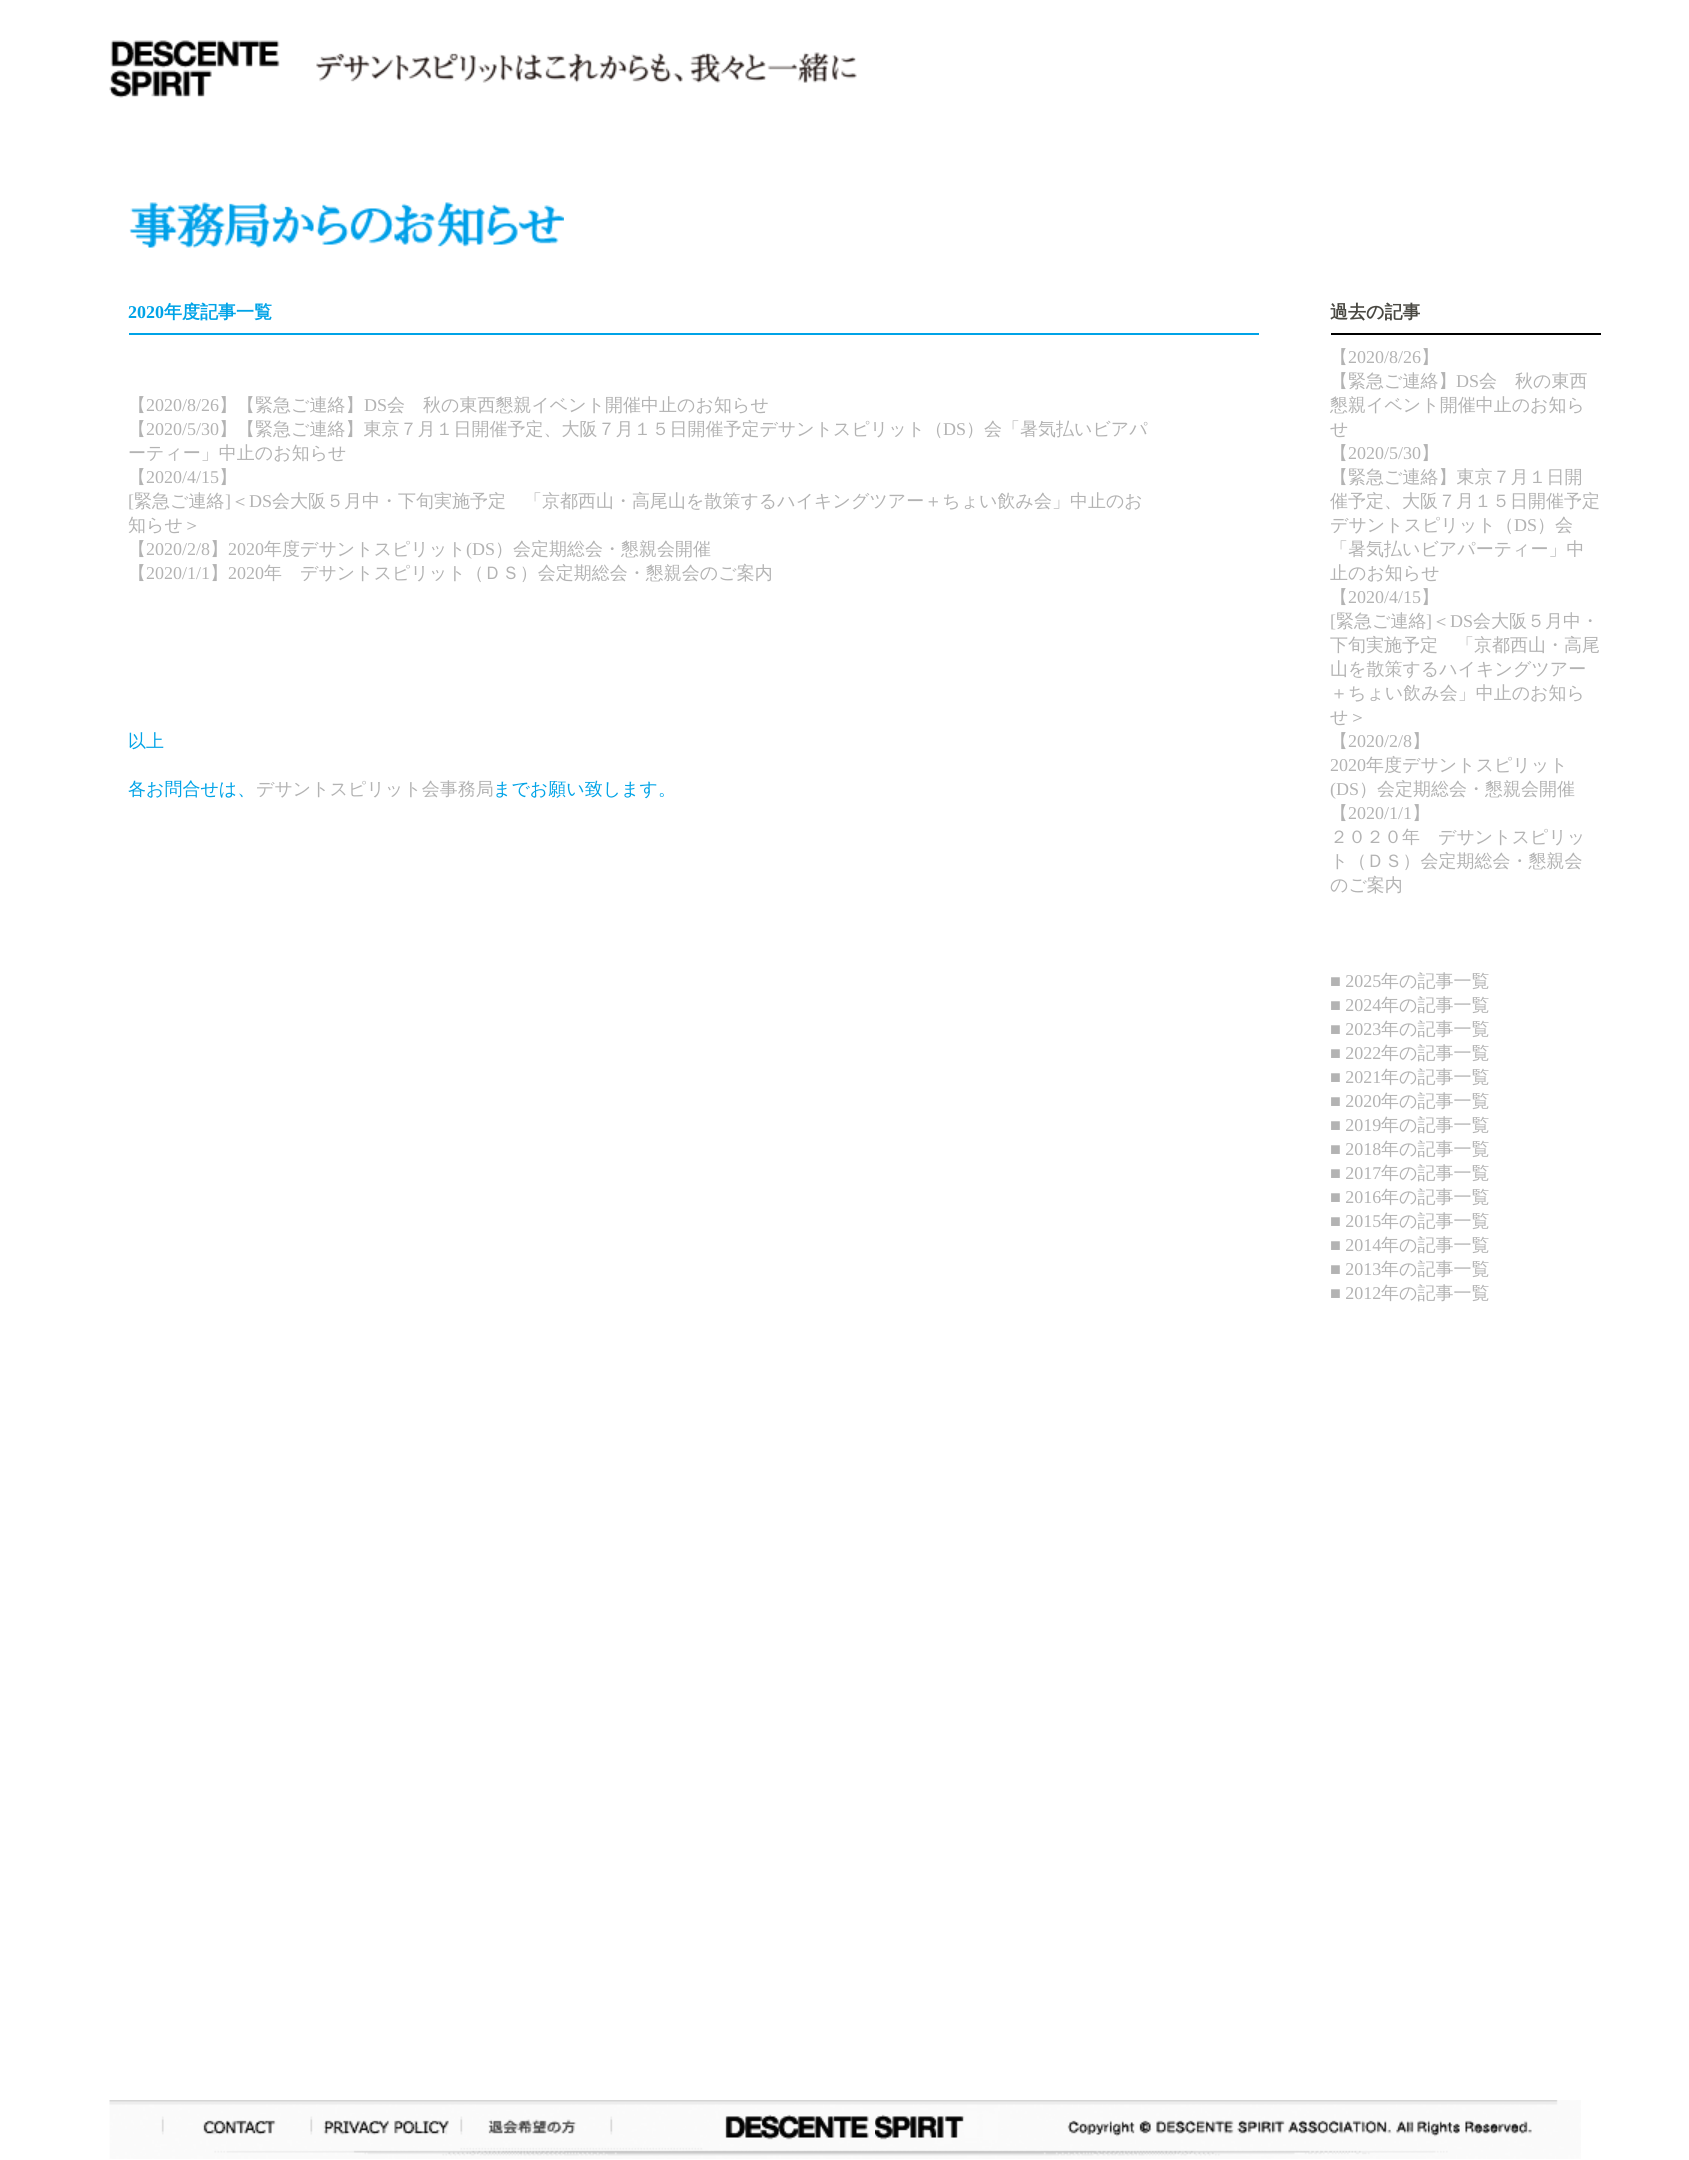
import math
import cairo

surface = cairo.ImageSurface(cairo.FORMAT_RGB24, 1689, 2160)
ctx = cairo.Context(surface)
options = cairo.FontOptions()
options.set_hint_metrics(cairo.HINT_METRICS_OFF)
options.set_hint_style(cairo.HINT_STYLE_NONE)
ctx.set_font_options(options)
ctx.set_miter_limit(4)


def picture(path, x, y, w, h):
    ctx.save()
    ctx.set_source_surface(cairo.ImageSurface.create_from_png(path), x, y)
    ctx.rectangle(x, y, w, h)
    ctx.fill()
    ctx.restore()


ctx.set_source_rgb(1, 1, 1)
ctx.paint()
picture("img1.png", 109, 40, 748, 58)
picture("img2.png", 129, 202, 435, 46)
ctx.select_font_face("Liberation Serif", cairo.FONT_SLANT_NORMAL, cairo.FONT_WEIGHT_BOLD)
ctx.set_font_size(18)
ctx.set_source_rgb(0, 0.639, 0.906)
ctx.move_to(128, 318)
ctx.show_text("2020")
ctx.select_font_face("WenQuanYi Zen Hei", cairo.FONT_SLANT_NORMAL, cairo.FONT_WEIGHT_BOLD)
ctx.move_to(164, 318)
ctx.show_text("年度記事一覧")
ctx.rectangle(129, 333, 1130, 2)
ctx.fill()
ctx.select_font_face("WenQuanYi Zen Hei Medium")
ctx.set_source_rgb(0.702, 0.702, 0.702)
ctx.move_to(128, 411)
ctx.show_text("【")
ctx.select_font_face("Liberation Serif")
ctx.move_to(146, 411)
ctx.show_text("2020/8/26")
ctx.select_font_face("WenQuanYi Zen Hei Medium")
ctx.move_to(219, 411)
ctx.show_text("】【緊急ご連絡】")
ctx.select_font_face("Liberation Serif")
ctx.move_to(364, 411)
ctx.show_text("DS")
ctx.select_font_face("WenQuanYi Zen Hei Medium")
ctx.move_to(387, 411)
ctx.show_text("会　秋の東西懇親イベント開催中止のお知らせ")
ctx.move_to(128, 435)
ctx.show_text("【")
ctx.select_font_face("Liberation Serif")
ctx.move_to(146, 435)
ctx.show_text("2020/5/30")
ctx.select_font_face("WenQuanYi Zen Hei Medium")
ctx.move_to(219, 435)
ctx.show_text("】【緊急ご連絡】東京７月１日開催予定、大阪７月１５日開催予定デサントスピリット（")
ctx.select_font_face("Liberation Serif")
ctx.move_to(943, 435)
ctx.show_text("DS")
ctx.select_font_face("WenQuanYi Zen Hei Medium")
ctx.move_to(966, 435)
ctx.show_text("）会「暑気払いビアパ")
ctx.move_to(128, 459)
ctx.show_text("ーティー」中止のお知らせ")
ctx.move_to(128, 483)
ctx.show_text("【")
ctx.select_font_face("Liberation Serif")
ctx.move_to(146, 483)
ctx.show_text("2020/4/15")
ctx.select_font_face("WenQuanYi Zen Hei Medium")
ctx.move_to(219, 483)
ctx.show_text("】")
ctx.select_font_face("Liberation Serif")
ctx.move_to(128, 507)
ctx.show_text("[")
ctx.select_font_face("WenQuanYi Zen Hei Medium")
ctx.move_to(134, 507)
ctx.show_text("緊急ご連絡")
ctx.select_font_face("Liberation Serif")
ctx.move_to(225, 507)
ctx.show_text("]")
ctx.select_font_face("WenQuanYi Zen Hei Medium")
ctx.move_to(231, 507)
ctx.show_text("＜")
ctx.select_font_face("Liberation Serif")
ctx.move_to(249, 507)
ctx.show_text("DS")
ctx.select_font_face("WenQuanYi Zen Hei Medium")
ctx.move_to(272, 507)
ctx.show_text("会大阪５月中・下旬実施予定　「京都西山・高尾山を散策するハイキングツアー＋ちょい飲み会」中止のお")
ctx.move_to(128, 531)
ctx.show_text("知らせ＞")
ctx.move_to(128, 555)
ctx.show_text("【")
ctx.select_font_face("Liberation Serif")
ctx.move_to(146, 555)
ctx.show_text("2020/2/8")
ctx.select_font_face("WenQuanYi Zen Hei Medium")
ctx.move_to(210, 555)
ctx.show_text("】")
ctx.select_font_face("Liberation Serif")
ctx.move_to(228, 555)
ctx.show_text("2020")
ctx.select_font_face("WenQuanYi Zen Hei Medium")
ctx.move_to(264, 555)
ctx.show_text("年度デサントスピリット")
ctx.select_font_face("Liberation Serif")
ctx.move_to(466, 555)
ctx.show_text("(DS")
ctx.select_font_face("WenQuanYi Zen Hei Medium")
ctx.move_to(495, 555)
ctx.show_text("）会定期総会・懇親会開催")
ctx.move_to(128, 579)
ctx.show_text("【")
ctx.select_font_face("Liberation Serif")
ctx.move_to(146, 579)
ctx.show_text("2020/1/1")
ctx.select_font_face("WenQuanYi Zen Hei Medium")
ctx.move_to(210, 579)
ctx.show_text("】")
ctx.select_font_face("Liberation Serif")
ctx.move_to(228, 579)
ctx.show_text("2020")
ctx.select_font_face("WenQuanYi Zen Hei Medium")
ctx.move_to(264, 579)
ctx.show_text("年　デサントスピリット（ＤＳ）会定期総会・懇親会のご案内")
ctx.set_source_rgb(0, 0.639, 0.906)
ctx.move_to(128, 747)
ctx.show_text("以上")
ctx.move_to(128, 795)
ctx.show_text("各お問合せは、")
ctx.set_source_rgb(0.702, 0.702, 0.702)
ctx.move_to(256, 795)
ctx.show_text("デサントスピリット会事務局")
ctx.set_source_rgb(0, 0.639, 0.906)
ctx.move_to(493, 795)
ctx.show_text("までお願い致します。")
ctx.select_font_face("WenQuanYi Zen Hei", cairo.FONT_SLANT_NORMAL, cairo.FONT_WEIGHT_BOLD)
ctx.set_source_rgb(0.286, 0.282, 0.259)
ctx.move_to(1330, 318)
ctx.show_text("過去の記事")
ctx.set_source_rgb(0, 0, 0)
ctx.rectangle(1331, 333, 270, 2)
ctx.fill()
ctx.select_font_face("WenQuanYi Zen Hei Medium")
ctx.set_source_rgb(0.702, 0.702, 0.702)
ctx.move_to(1330, 363)
ctx.show_text("【")
ctx.select_font_face("Liberation Serif")
ctx.move_to(1348, 363)
ctx.show_text("2020/8/26")
ctx.select_font_face("WenQuanYi Zen Hei Medium")
ctx.move_to(1421, 363)
ctx.show_text("】")
ctx.move_to(1330, 387)
ctx.show_text("【緊急ご連絡】")
ctx.select_font_face("Liberation Serif")
ctx.move_to(1456, 387)
ctx.show_text("DS")
ctx.select_font_face("WenQuanYi Zen Hei Medium")
ctx.move_to(1479, 387)
ctx.show_text("会　秋の東西")
ctx.move_to(1330, 411)
ctx.show_text("懇親イベント開催中止のお知ら")
ctx.move_to(1330, 435)
ctx.show_text("せ")
ctx.move_to(1330, 459)
ctx.show_text("【")
ctx.select_font_face("Liberation Serif")
ctx.move_to(1348, 459)
ctx.show_text("2020/5/30")
ctx.select_font_face("WenQuanYi Zen Hei Medium")
ctx.move_to(1421, 459)
ctx.show_text("】")
ctx.move_to(1330, 483)
ctx.show_text("【緊急ご連絡】東京７月１日開")
ctx.move_to(1330, 507)
ctx.show_text("催予定、大阪７月１５日開催予定")
ctx.move_to(1330, 531)
ctx.show_text("デサントスピリット（")
ctx.select_font_face("Liberation Serif")
ctx.move_to(1514, 531)
ctx.show_text("DS")
ctx.select_font_face("WenQuanYi Zen Hei Medium")
ctx.move_to(1537, 531)
ctx.show_text("）会")
ctx.move_to(1330, 555)
ctx.show_text("「暑気払いビアパーティー」中")
ctx.move_to(1330, 579)
ctx.show_text("止のお知らせ")
ctx.move_to(1330, 603)
ctx.show_text("【")
ctx.select_font_face("Liberation Serif")
ctx.move_to(1348, 603)
ctx.show_text("2020/4/15")
ctx.select_font_face("WenQuanYi Zen Hei Medium")
ctx.move_to(1421, 603)
ctx.show_text("】")
ctx.select_font_face("Liberation Serif")
ctx.move_to(1330, 627)
ctx.show_text("[")
ctx.select_font_face("WenQuanYi Zen Hei Medium")
ctx.move_to(1336, 627)
ctx.show_text("緊急ご連絡")
ctx.select_font_face("Liberation Serif")
ctx.move_to(1426, 627)
ctx.show_text("]")
ctx.select_font_face("WenQuanYi Zen Hei Medium")
ctx.move_to(1432, 627)
ctx.show_text("＜")
ctx.select_font_face("Liberation Serif")
ctx.move_to(1450, 627)
ctx.show_text("DS")
ctx.select_font_face("WenQuanYi Zen Hei Medium")
ctx.move_to(1473, 627)
ctx.show_text("会大阪５月中・")
ctx.move_to(1330, 651)
ctx.show_text("下旬実施予定　「京都西山・高尾")
ctx.move_to(1330, 675)
ctx.show_text("山を散策するハイキングツアー")
ctx.move_to(1330, 699)
ctx.show_text("＋ちょい飲み会」中止のお知ら")
ctx.move_to(1330, 723)
ctx.show_text("せ＞")
ctx.move_to(1330, 747)
ctx.show_text("【")
ctx.select_font_face("Liberation Serif")
ctx.move_to(1348, 747)
ctx.show_text("2020/2/8")
ctx.select_font_face("WenQuanYi Zen Hei Medium")
ctx.move_to(1412, 747)
ctx.show_text("】")
ctx.select_font_face("Liberation Serif")
ctx.move_to(1330, 771)
ctx.show_text("2020")
ctx.select_font_face("WenQuanYi Zen Hei Medium")
ctx.move_to(1366, 771)
ctx.show_text("年度デサントスピリット")
ctx.select_font_face("Liberation Serif")
ctx.move_to(1330, 795)
ctx.show_text("(DS")
ctx.select_font_face("WenQuanYi Zen Hei Medium")
ctx.move_to(1359, 795)
ctx.show_text("）会定期総会・懇親会開催")
ctx.move_to(1330, 819)
ctx.show_text("【")
ctx.select_font_face("Liberation Serif")
ctx.move_to(1348, 819)
ctx.show_text("2020/1/1")
ctx.select_font_face("WenQuanYi Zen Hei Medium")
ctx.move_to(1412, 819)
ctx.show_text("】")
ctx.move_to(1330, 843)
ctx.show_text("２０２０年　デサントスピリッ")
ctx.move_to(1330, 867)
ctx.show_text("ト（ＤＳ）会定期総会・懇親会")
ctx.move_to(1330, 891)
ctx.show_text("のご案内")
ctx.select_font_face("Liberation Serif")
ctx.move_to(1330, 987)
ctx.show_text("■ 2025")
ctx.select_font_face("WenQuanYi Zen Hei Medium")
ctx.move_to(1381, 987)
ctx.show_text("年の記事一覧")
ctx.select_font_face("Liberation Serif")
ctx.move_to(1330, 1011)
ctx.show_text("■ 2024")
ctx.select_font_face("WenQuanYi Zen Hei Medium")
ctx.move_to(1381, 1011)
ctx.show_text("年の記事一覧")
ctx.select_font_face("Liberation Serif")
ctx.move_to(1330, 1035)
ctx.show_text("■ 2023")
ctx.select_font_face("WenQuanYi Zen Hei Medium")
ctx.move_to(1381, 1035)
ctx.show_text("年の記事一覧")
ctx.select_font_face("Liberation Serif")
ctx.move_to(1330, 1059)
ctx.show_text("■ 2022")
ctx.select_font_face("WenQuanYi Zen Hei Medium")
ctx.move_to(1381, 1059)
ctx.show_text("年の記事一覧")
ctx.select_font_face("Liberation Serif")
ctx.move_to(1330, 1083)
ctx.show_text("■ 2021")
ctx.select_font_face("WenQuanYi Zen Hei Medium")
ctx.move_to(1381, 1083)
ctx.show_text("年の記事一覧")
ctx.select_font_face("Liberation Serif")
ctx.move_to(1330, 1107)
ctx.show_text("■ 2020")
ctx.select_font_face("WenQuanYi Zen Hei Medium")
ctx.move_to(1381, 1107)
ctx.show_text("年の記事一覧")
ctx.select_font_face("Liberation Serif")
ctx.move_to(1330, 1131)
ctx.show_text("■ 2019")
ctx.select_font_face("WenQuanYi Zen Hei Medium")
ctx.move_to(1381, 1131)
ctx.show_text("年の記事一覧")
ctx.select_font_face("Liberation Serif")
ctx.move_to(1330, 1155)
ctx.show_text("■ 2018")
ctx.select_font_face("WenQuanYi Zen Hei Medium")
ctx.move_to(1381, 1155)
ctx.show_text("年の記事一覧")
ctx.select_font_face("Liberation Serif")
ctx.move_to(1330, 1179)
ctx.show_text("■ 2017")
ctx.select_font_face("WenQuanYi Zen Hei Medium")
ctx.move_to(1381, 1179)
ctx.show_text("年の記事一覧")
ctx.select_font_face("Liberation Serif")
ctx.move_to(1330, 1203)
ctx.show_text("■ 2016")
ctx.select_font_face("WenQuanYi Zen Hei Medium")
ctx.move_to(1381, 1203)
ctx.show_text("年の記事一覧")
ctx.select_font_face("Liberation Serif")
ctx.move_to(1330, 1227)
ctx.show_text("■ 2015")
ctx.select_font_face("WenQuanYi Zen Hei Medium")
ctx.move_to(1381, 1227)
ctx.show_text("年の記事一覧")
ctx.select_font_face("Liberation Serif")
ctx.move_to(1330, 1251)
ctx.show_text("■ 2014")
ctx.select_font_face("WenQuanYi Zen Hei Medium")
ctx.move_to(1381, 1251)
ctx.show_text("年の記事一覧")
ctx.select_font_face("Liberation Serif")
ctx.move_to(1330, 1275)
ctx.show_text("■ 2013")
ctx.select_font_face("WenQuanYi Zen Hei Medium")
ctx.move_to(1381, 1275)
ctx.show_text("年の記事一覧")
ctx.select_font_face("Liberation Serif")
ctx.move_to(1330, 1299)
ctx.show_text("■ 2012")
ctx.select_font_face("WenQuanYi Zen Hei Medium")
ctx.move_to(1381, 1299)
ctx.show_text("年の記事一覧")
picture("img3.png", 109, 2100, 1472, 59)
surface.write_to_png("page.png")
